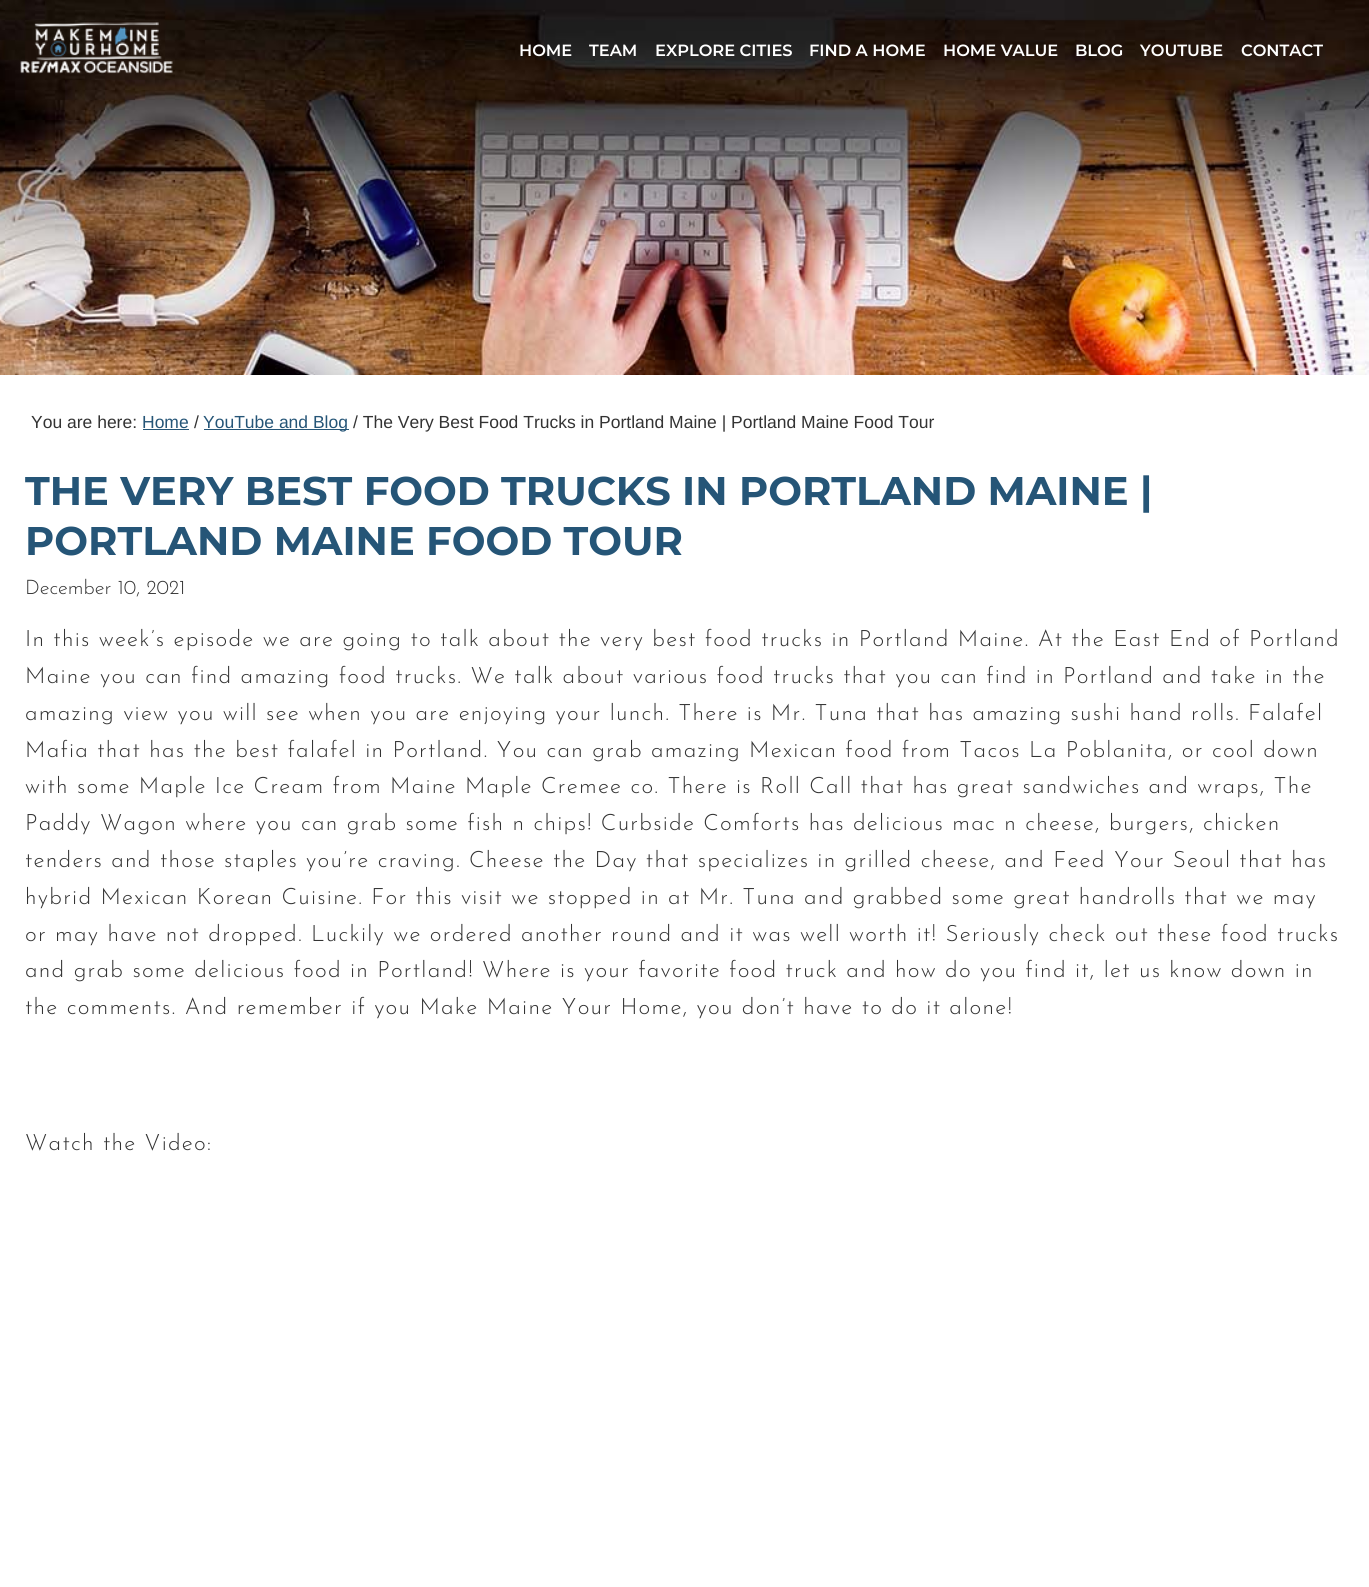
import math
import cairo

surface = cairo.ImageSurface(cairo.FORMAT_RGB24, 1369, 1587)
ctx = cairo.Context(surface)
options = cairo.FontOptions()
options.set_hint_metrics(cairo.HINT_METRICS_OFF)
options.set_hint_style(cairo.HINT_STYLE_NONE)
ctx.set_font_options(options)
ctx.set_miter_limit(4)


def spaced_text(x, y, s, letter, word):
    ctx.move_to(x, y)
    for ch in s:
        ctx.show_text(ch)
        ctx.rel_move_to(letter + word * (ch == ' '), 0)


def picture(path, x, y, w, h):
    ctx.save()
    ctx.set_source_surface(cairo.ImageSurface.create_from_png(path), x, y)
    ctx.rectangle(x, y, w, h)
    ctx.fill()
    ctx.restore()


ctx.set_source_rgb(1, 1, 1)
ctx.paint()
picture("img1.png", 0, 0, 1369, 375)
picture("img2.png", 20, 20, 153, 54)
ctx.select_font_face("Montserrat SemiBold")
ctx.set_font_size(16.25)
ctx.set_source_rgb(1, 1, 1)
ctx.move_to(519, 56)
ctx.show_text("HOME")
ctx.move_to(589, 56)
ctx.show_text("TEAM")
ctx.move_to(655, 56)
ctx.show_text("EXPLORE CITIES")
ctx.move_to(809, 56)
ctx.show_text("FIND A HOME")
ctx.move_to(943, 56)
ctx.show_text("HOME VALUE")
ctx.move_to(1075, 56)
ctx.show_text("BLOG")
ctx.move_to(1140, 56)
ctx.show_text("YOUTUBE")
ctx.move_to(1241, 56)
ctx.show_text("CONTACT")
ctx.select_font_face("Liberation Sans")
ctx.set_font_size(17.5)
ctx.set_source_rgb(0.2, 0.2, 0.2)
ctx.move_to(31, 428)
ctx.show_text("You are here:")
ctx.set_source_rgb(0.145, 0.333, 0.467)
ctx.move_to(142, 428)
ctx.show_text("Home")
ctx.rectangle(143, 429, 46, 1)
ctx.fill()
ctx.set_source_rgb(0.2, 0.2, 0.2)
ctx.move_to(194, 428)
ctx.show_text("/")
ctx.set_source_rgb(0.145, 0.333, 0.467)
ctx.rectangle(204, 429, 145, 1)
ctx.fill()
ctx.move_to(203, 428)
ctx.show_text("YouTube and Blog")
ctx.set_source_rgb(0.2, 0.2, 0.2)
ctx.move_to(353, 428)
ctx.show_text("/ The Very Best Food Trucks in Portland Maine | Portland Maine Food Tour")
ctx.select_font_face("Montserrat", cairo.FONT_SLANT_NORMAL, cairo.FONT_WEIGHT_BOLD)
ctx.set_font_size(40)
ctx.set_source_rgb(0.145, 0.333, 0.467)
ctx.move_to(25, 505)
ctx.show_text("THE VERY BEST FOOD TRUCKS IN PORTLAND MAINE |")
ctx.move_to(25, 555)
ctx.show_text("PORTLAND MAINE FOOD TOUR")
ctx.select_font_face("Josefin Sans Light")
ctx.set_font_size(20)
ctx.set_source_rgb(0.2, 0.2, 0.2)
ctx.move_to(25, 594)
ctx.show_text("December 10, 2021")
ctx.set_font_size(22.5)
spaced_text(25, 646, "In this week’s episode we are going to talk about the very best food trucks in Portland Maine. At the East End of Portland", 1.25, 0)
spaced_text(25, 683, "Maine you can find amazing food trucks. We talk about various food trucks that you can find in Portland and take in the", 1.25, 0)
spaced_text(25, 720, "amazing view you will see when you are enjoying your lunch. There is Mr. Tuna that has amazing sushi hand rolls. Falafel", 1.25, 0)
spaced_text(25, 757, "Mafia that has the best falafel in Portland. You can grab amazing Mexican food from Tacos La Poblanita, or cool down", 1.25, 0)
spaced_text(25, 793, "with some Maple Ice Cream from Maine Maple Cremee co. There is Roll Call that has great sandwiches and wraps, The", 1.25, 0)
spaced_text(25, 830, "Paddy Wagon where you can grab some fish n chips! Curbside Comforts has delicious mac n cheese, burgers, chicken", 1.25, 0)
spaced_text(25, 867, "tenders and those staples you’re craving. Cheese the Day that specializes in grilled cheese, and Feed Your Seoul that has", 1.25, 0)
spaced_text(25, 904, "hybrid Mexican Korean Cuisine. For this visit we stopped in at Mr. Tuna and grabbed some great handrolls that we may", 1.25, 0)
spaced_text(25, 941, "or may have not dropped. Luckily we ordered another round and it was well worth it! Seriously check out these food trucks", 1.25, 0)
spaced_text(25, 977, "and grab some delicious food in Portland! Where is your favorite food truck and how do you find it, let us know down in", 1.25, 0)
spaced_text(25, 1014, "the comments. And remember if you Make Maine Your Home, you don’t have to do it alone!", 1.25, 0)
spaced_text(25, 1150, "Watch the Video:", 1.25, 0)
surface.write_to_png("page.png")
